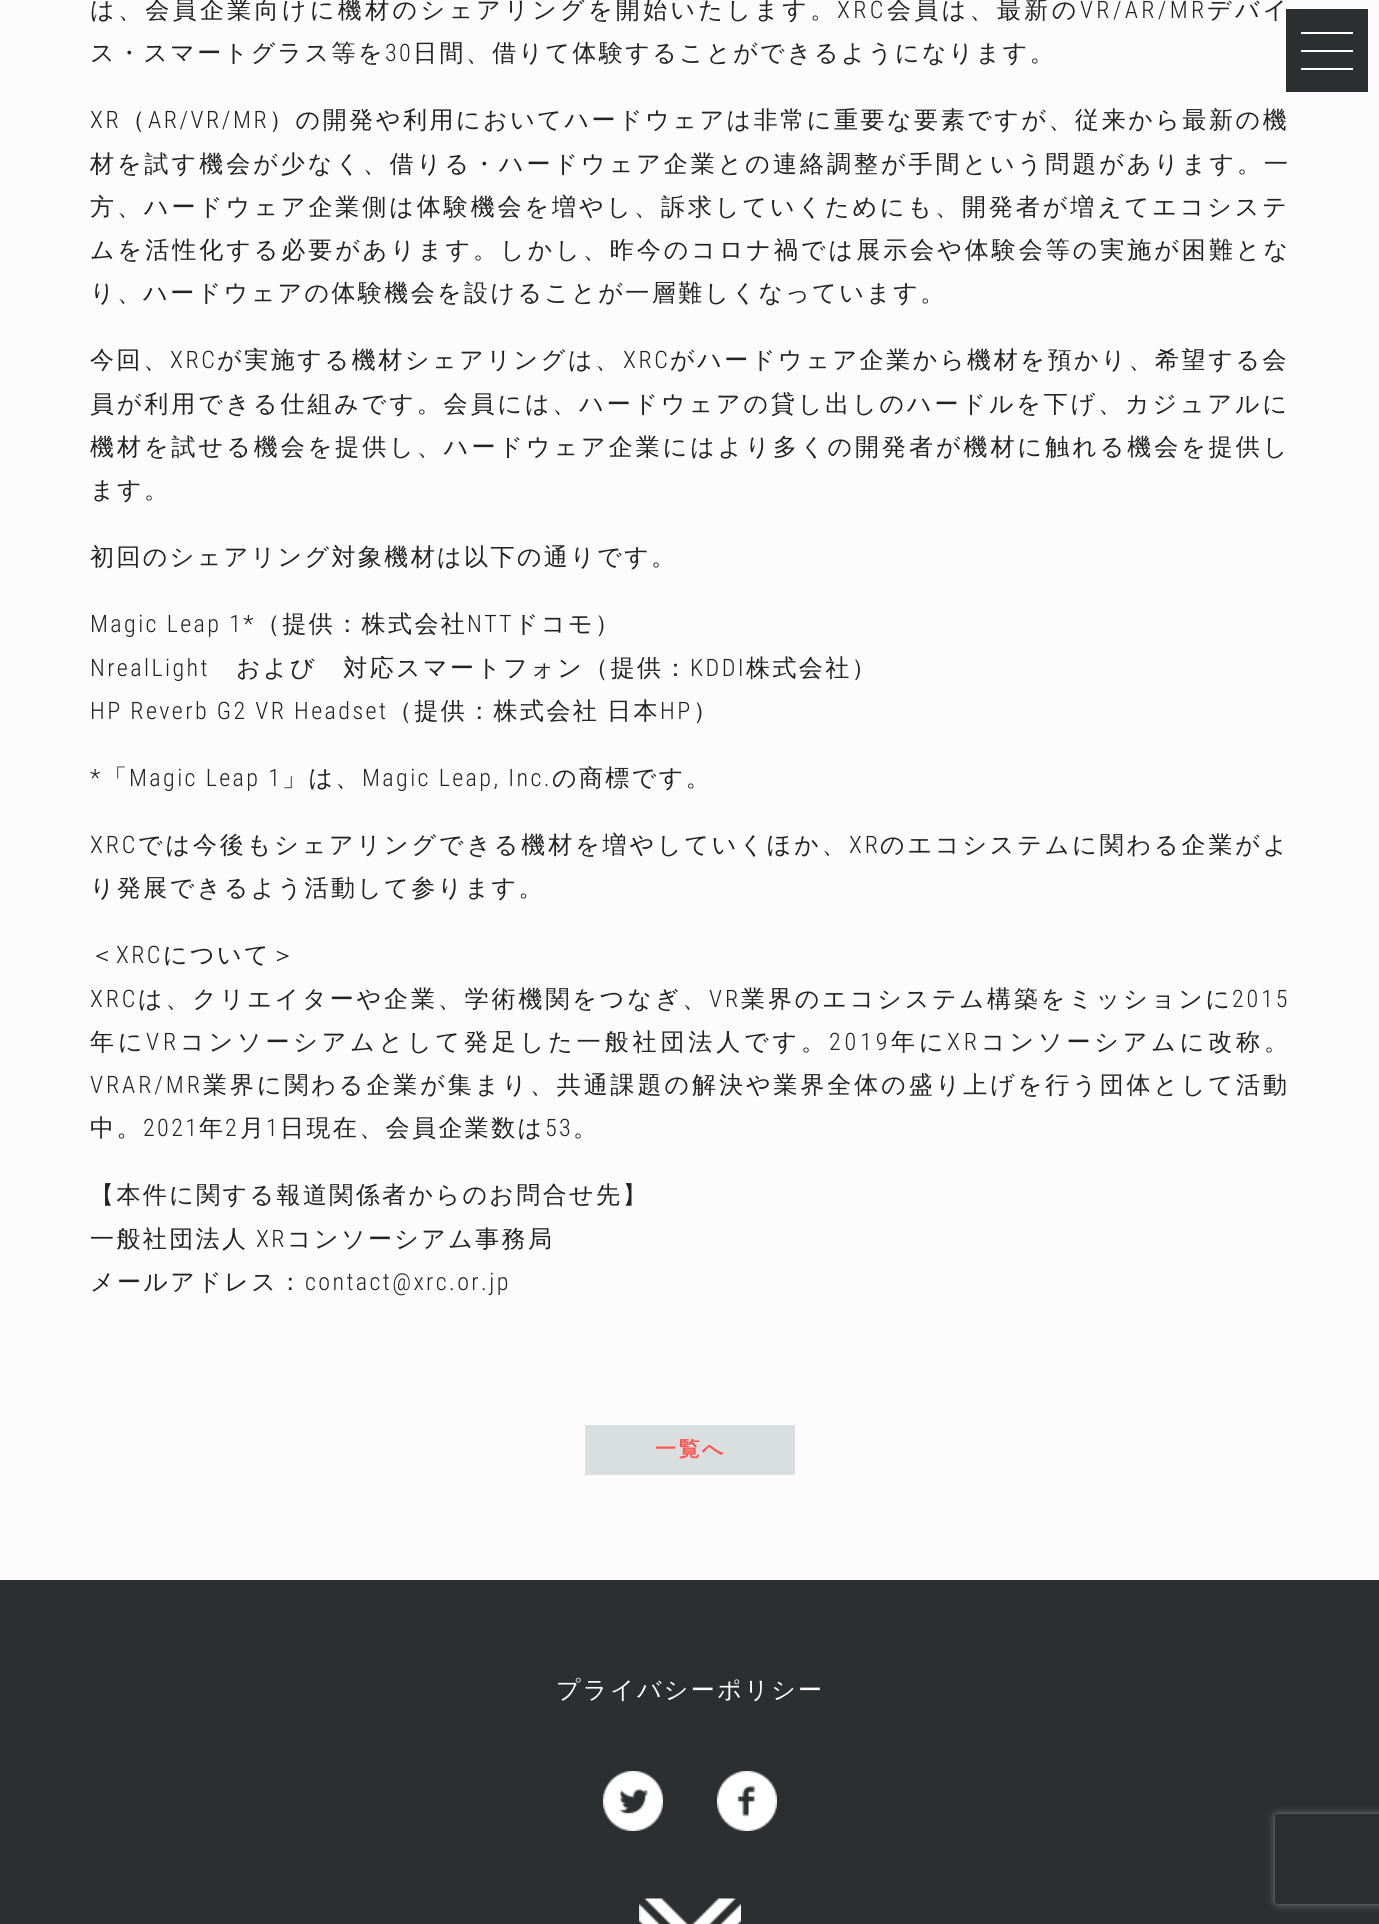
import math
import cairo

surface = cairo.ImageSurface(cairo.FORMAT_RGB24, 1379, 1924)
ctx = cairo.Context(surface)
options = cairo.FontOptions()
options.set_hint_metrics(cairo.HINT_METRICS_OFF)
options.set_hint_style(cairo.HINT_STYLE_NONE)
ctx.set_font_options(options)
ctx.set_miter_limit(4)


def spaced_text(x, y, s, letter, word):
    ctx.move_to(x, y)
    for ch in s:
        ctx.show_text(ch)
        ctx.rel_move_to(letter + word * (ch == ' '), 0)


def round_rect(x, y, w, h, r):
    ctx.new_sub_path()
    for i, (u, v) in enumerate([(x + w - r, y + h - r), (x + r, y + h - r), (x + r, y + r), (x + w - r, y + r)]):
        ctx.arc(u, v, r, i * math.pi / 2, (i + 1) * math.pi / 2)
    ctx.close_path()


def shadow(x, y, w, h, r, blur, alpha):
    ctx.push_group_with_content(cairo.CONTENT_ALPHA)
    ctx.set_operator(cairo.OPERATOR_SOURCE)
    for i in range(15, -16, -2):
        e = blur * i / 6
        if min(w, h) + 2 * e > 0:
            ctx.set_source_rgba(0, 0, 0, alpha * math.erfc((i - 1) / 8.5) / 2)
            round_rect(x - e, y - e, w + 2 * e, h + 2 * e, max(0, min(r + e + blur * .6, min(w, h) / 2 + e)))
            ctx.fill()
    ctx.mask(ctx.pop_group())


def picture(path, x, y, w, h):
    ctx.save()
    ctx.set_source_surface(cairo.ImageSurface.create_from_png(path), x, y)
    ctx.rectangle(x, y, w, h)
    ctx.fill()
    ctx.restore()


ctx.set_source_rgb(0.988, 0.988, 0.988)
ctx.paint()
ctx.select_font_face("WenQuanYi Zen Hei Medium")
ctx.set_font_size(24)
ctx.set_source_rgb(0.133, 0.133, 0.133)
spaced_text(90, 18, "は、会員企業向けに機材のシェアリングを開始いたします。", 3.35, 0)
ctx.select_font_face("Roboto Condensed Light")
spaced_text(837, 18, "XRC", 3.35, 0)
ctx.select_font_face("WenQuanYi Zen Hei Medium")
spaced_text(887, 18, "会員は、最新の", 3.35, 0)
ctx.select_font_face("Roboto Condensed Light")
spaced_text(1080, 18, "VR/AR/MR", 3.35, 0)
ctx.select_font_face("WenQuanYi Zen Hei Medium")
spaced_text(1207, 18, "デバイ", 3.35, 0)
spaced_text(90, 61, "ス・スマートグラス等を", 2.4, 0)
ctx.select_font_face("Roboto Condensed Light")
spaced_text(385, 61, "30", 2.4, 0)
ctx.select_font_face("WenQuanYi Zen Hei Medium")
spaced_text(413, 61, "日間、借りて体験することができるようになります。", 2.4, 0)
ctx.select_font_face("Roboto Condensed Light")
spaced_text(90, 128, "XR", 2.55, 0)
ctx.select_font_face("WenQuanYi Zen Hei Medium")
spaced_text(121, 128, "（", 2.55, 0)
ctx.select_font_face("Roboto Condensed Light")
spaced_text(148, 128, "AR/VR/MR", 2.55, 0)
ctx.select_font_face("WenQuanYi Zen Hei Medium")
spaced_text(269, 128, "）の開発や利用においてハードウェアは非常に重要な要素ですが、従来から最新の機", 2.55, 0)
spaced_text(90, 172, "材を試す機会が少なく、借りる・ハードウェア企業との連絡調整が手間という問題があります。一", 3, 0)
spaced_text(90, 215, "方、ハードウェア企業側は体験機会を増やし、訴求していくためにも、開発者が増えてエコシステ", 2.95, 0)
spaced_text(90, 258, "ムを活性化する必要があります。しかし、昨今のコロナ禍では展示会や体験会等の実施が困難とな", 3, 0)
spaced_text(90, 301, "り、ハードウェアの体験機会を設けることが一層難しくなっています。", 2.4, 0)
spaced_text(90, 368, "今回、", 2.6, 0)
ctx.select_font_face("Roboto Condensed Light")
spaced_text(170, 368, "XRC", 2.6, 0)
ctx.select_font_face("WenQuanYi Zen Hei Medium")
spaced_text(217, 368, "が実施する機材シェアリングは、", 2.6, 0)
ctx.select_font_face("Roboto Condensed Light")
spaced_text(623, 368, "XRC", 2.6, 0)
ctx.select_font_face("WenQuanYi Zen Hei Medium")
spaced_text(670, 368, "がハードウェア企業から機材を預かり、希望する会", 2.6, 0)
spaced_text(90, 412, "員が利用できる仕組みです。会員には、ハードウェアの貸し出しのハードルを下げ、カジュアルに", 2.9, 0)
spaced_text(90, 455, "機材を試せる機会を提供し、ハードウェア企業にはより多くの開発者が機材に触れる機会を提供し", 3, 0)
spaced_text(90, 498, "ます。", 2.4, 0)
spaced_text(90, 565, "初回のシェアリング対象機材は以下の通りです。", 2.4, 0)
ctx.select_font_face("Roboto Condensed Light")
spaced_text(90, 632, "Magic Leap 1*", 2.4, 0)
ctx.select_font_face("WenQuanYi Zen Hei Medium")
spaced_text(256, 632, "（提供：株式会社", 2.4, 0)
ctx.select_font_face("Roboto Condensed Light")
spaced_text(467, 632, "NTT", 2.4, 0)
ctx.select_font_face("WenQuanYi Zen Hei Medium")
spaced_text(514, 632, "ドコモ）", 2.4, 0)
ctx.select_font_face("Roboto Condensed Light")
spaced_text(90, 676, "NrealLight", 2.4, 0)
ctx.select_font_face("WenQuanYi Zen Hei Medium")
spaced_text(236, 676, "および　対応スマートフォン（提供：", 2.4, 0)
ctx.select_font_face("Roboto Condensed Light")
spaced_text(690, 676, "KDDI", 2.4, 0)
ctx.select_font_face("WenQuanYi Zen Hei Medium")
spaced_text(746, 676, "株式会社）", 2.4, 0)
ctx.select_font_face("Roboto Condensed Light")
spaced_text(90, 719, "HP Reverb G2 VR Headset", 2.4, 0)
ctx.select_font_face("WenQuanYi Zen Hei Medium")
spaced_text(388, 719, "（提供：株式会社", 2.4, 0)
spaced_text(607, 719, "日本", 2.4, 0)
ctx.select_font_face("Roboto Condensed Light")
spaced_text(660, 719, "HP", 2.4, 0)
ctx.select_font_face("WenQuanYi Zen Hei Medium")
spaced_text(693, 719, "）", 2.4, 0)
ctx.select_font_face("Roboto Condensed Light")
spaced_text(90, 786, "*", 2.4, 0)
ctx.select_font_face("WenQuanYi Zen Hei Medium")
spaced_text(103, 786, "「", 2.4, 0)
ctx.select_font_face("Roboto Condensed Light")
spaced_text(129, 786, "Magic Leap 1", 2.4, 0)
ctx.select_font_face("WenQuanYi Zen Hei Medium")
spaced_text(282, 786, "」は、", 2.4, 0)
ctx.select_font_face("Roboto Condensed Light")
spaced_text(362, 786, "Magic Leap, Inc.", 2.4, 0)
ctx.select_font_face("WenQuanYi Zen Hei Medium")
spaced_text(552, 786, "の商標です。", 2.4, 0)
ctx.select_font_face("Roboto Condensed Light")
spaced_text(90, 853, "XRC", 2.9, 0)
ctx.select_font_face("WenQuanYi Zen Hei Medium")
spaced_text(138, 853, "では今後もシェアリングできる機材を増やしていくほか、", 2.9, 0)
ctx.select_font_face("Roboto Condensed Light")
spaced_text(849, 853, "XR", 2.9, 0)
ctx.select_font_face("WenQuanYi Zen Hei Medium")
spaced_text(880, 853, "のエコシステムに関わる企業がよ", 2.9, 0)
spaced_text(90, 896, "り発展できるよう活動して参ります。", 2.4, 0)
spaced_text(90, 963, "＜", 2.4, 0)
ctx.select_font_face("Roboto Condensed Light")
spaced_text(116, 963, "XRC", 2.4, 0)
ctx.select_font_face("WenQuanYi Zen Hei Medium")
spaced_text(163, 963, "について＞", 2.4, 0)
ctx.select_font_face("Roboto Condensed Light")
spaced_text(90, 1007, "XRC", 2.9, 0)
ctx.select_font_face("WenQuanYi Zen Hei Medium")
spaced_text(138, 1007, "は、クリエイターや企業、学術機関をつなぎ、", 2.9, 0)
ctx.select_font_face("Roboto Condensed Light")
spaced_text(709, 1007, "VR", 2.9, 0)
ctx.select_font_face("WenQuanYi Zen Hei Medium")
spaced_text(741, 1007, "業界のエコシステム構築をミッションに", 2.9, 0)
ctx.select_font_face("Roboto Condensed Light")
spaced_text(1232, 1007, "2015", 2.9, 0)
ctx.select_font_face("WenQuanYi Zen Hei Medium")
spaced_text(90, 1050, "年に", 3.9, 0)
ctx.select_font_face("Roboto Condensed Light")
spaced_text(146, 1050, "VR", 3.9, 0)
ctx.select_font_face("WenQuanYi Zen Hei Medium")
spaced_text(180, 1050, "コンソーシアムとして発足した一般社団法人です。", 3.9, 0)
ctx.select_font_face("Roboto Condensed Light")
spaced_text(829, 1050, "2019", 3.9, 0)
ctx.select_font_face("WenQuanYi Zen Hei Medium")
spaced_text(891, 1050, "年に", 3.9, 0)
ctx.select_font_face("Roboto Condensed Light")
spaced_text(947, 1050, "XR", 3.9, 0)
ctx.select_font_face("WenQuanYi Zen Hei Medium")
spaced_text(981, 1050, "コンソーシアムに改称。", 3.9, 0)
ctx.select_font_face("Roboto Condensed Light")
spaced_text(90, 1093, "VRAR/MR", 2.95, 0)
ctx.select_font_face("WenQuanYi Zen Hei Medium")
spaced_text(203, 1093, "業界に関わる企業が集まり、共通課題の解決や業界全体の盛り上げを行う団体として活動", 2.95, 0)
spaced_text(90, 1136, "中。", 2.4, 0)
ctx.select_font_face("Roboto Condensed Light")
spaced_text(143, 1136, "2021", 2.4, 0)
ctx.select_font_face("WenQuanYi Zen Hei Medium")
spaced_text(199, 1136, "年", 2.4, 0)
ctx.select_font_face("Roboto Condensed Light")
spaced_text(225, 1136, "2", 2.4, 0)
ctx.select_font_face("WenQuanYi Zen Hei Medium")
spaced_text(240, 1136, "月", 2.4, 0)
ctx.select_font_face("Roboto Condensed Light")
spaced_text(266, 1136, "1", 2.4, 0)
ctx.select_font_face("WenQuanYi Zen Hei Medium")
spaced_text(280, 1136, "日現在、会員企業数は", 2.4, 0)
ctx.select_font_face("Roboto Condensed Light")
spaced_text(545, 1136, "53", 2.4, 0)
ctx.select_font_face("WenQuanYi Zen Hei Medium")
spaced_text(573, 1136, "。", 2.4, 0)
spaced_text(90, 1203, "【本件に関する報道関係者からのお問合せ先】", 2.4, 0)
spaced_text(90, 1247, "一般社団法人", 2.4, 0)
ctx.select_font_face("Roboto Condensed Light")
spaced_text(256, 1247, "XR", 2.4, 0)
ctx.select_font_face("WenQuanYi Zen Hei Medium")
spaced_text(287, 1247, "コンソーシアム事務局", 2.4, 0)
spaced_text(90, 1290, "メールアドレス：", 2.4, 0)
ctx.select_font_face("Roboto Condensed Light")
spaced_text(305, 1290, "contact@xrc.or.jp", 2.4, 0)
ctx.set_source_rgb(0.851, 0.871, 0.871)
ctx.rectangle(585, 1425, 210, 50)
ctx.fill()
ctx.select_font_face("WenQuanYi Zen Hei", cairo.FONT_SLANT_NORMAL, cairo.FONT_WEIGHT_BOLD)
ctx.set_font_size(21)
ctx.set_source_rgb(1, 0.325, 0.314)
spaced_text(655, 1456, "一覧へ", 2.4, 0)
ctx.set_source_rgb(0.169, 0.184, 0.184)
ctx.rectangle(1286, 9, 82, 83)
ctx.fill()
ctx.set_source_rgb(1, 1, 1)
ctx.rectangle(1301, 32, 52, 2)
ctx.fill()
ctx.rectangle(1301, 50, 52, 2)
ctx.fill()
ctx.rectangle(1301, 68, 52, 2)
ctx.fill()
ctx.set_source_rgb(0.169, 0.184, 0.184)
ctx.rectangle(0, 1580, 1379, 344)
ctx.fill()
ctx.select_font_face("WenQuanYi Zen Hei Medium")
ctx.set_font_size(24)
ctx.set_source_rgb(1, 1, 1)
spaced_text(556, 1698, "プライバシーポリシー", 2.4, 0)
picture("img1.png", 603, 1771, 60, 60)
picture("img2.png", 717, 1771, 60, 60)
picture("img3.png", 639, 1898, 102, 26)
ctx.save()
ctx.set_fill_rule(cairo.FILL_RULE_EVEN_ODD)
ctx.new_path()
ctx.move_to(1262, 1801)
ctx.line_to(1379, 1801)
ctx.line_to(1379, 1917)
ctx.line_to(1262, 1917)
ctx.close_path()
ctx.move_to(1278, 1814)
ctx.line_to(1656, 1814)
ctx.curve_to(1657.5, 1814, 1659, 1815.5, 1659, 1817)
ctx.line_to(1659, 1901)
ctx.curve_to(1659, 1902.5, 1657.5, 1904, 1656, 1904)
ctx.line_to(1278, 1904)
ctx.curve_to(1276.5, 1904, 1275, 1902.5, 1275, 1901)
ctx.line_to(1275, 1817)
ctx.curve_to(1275, 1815.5, 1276.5, 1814, 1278, 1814)
ctx.close_path()
ctx.clip()
ctx.set_source_rgb(0.502, 0.502, 0.502)
shadow(1275, 1814, 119, 90, 3, 4, 1)
ctx.restore()
surface.write_to_png("page.png")
